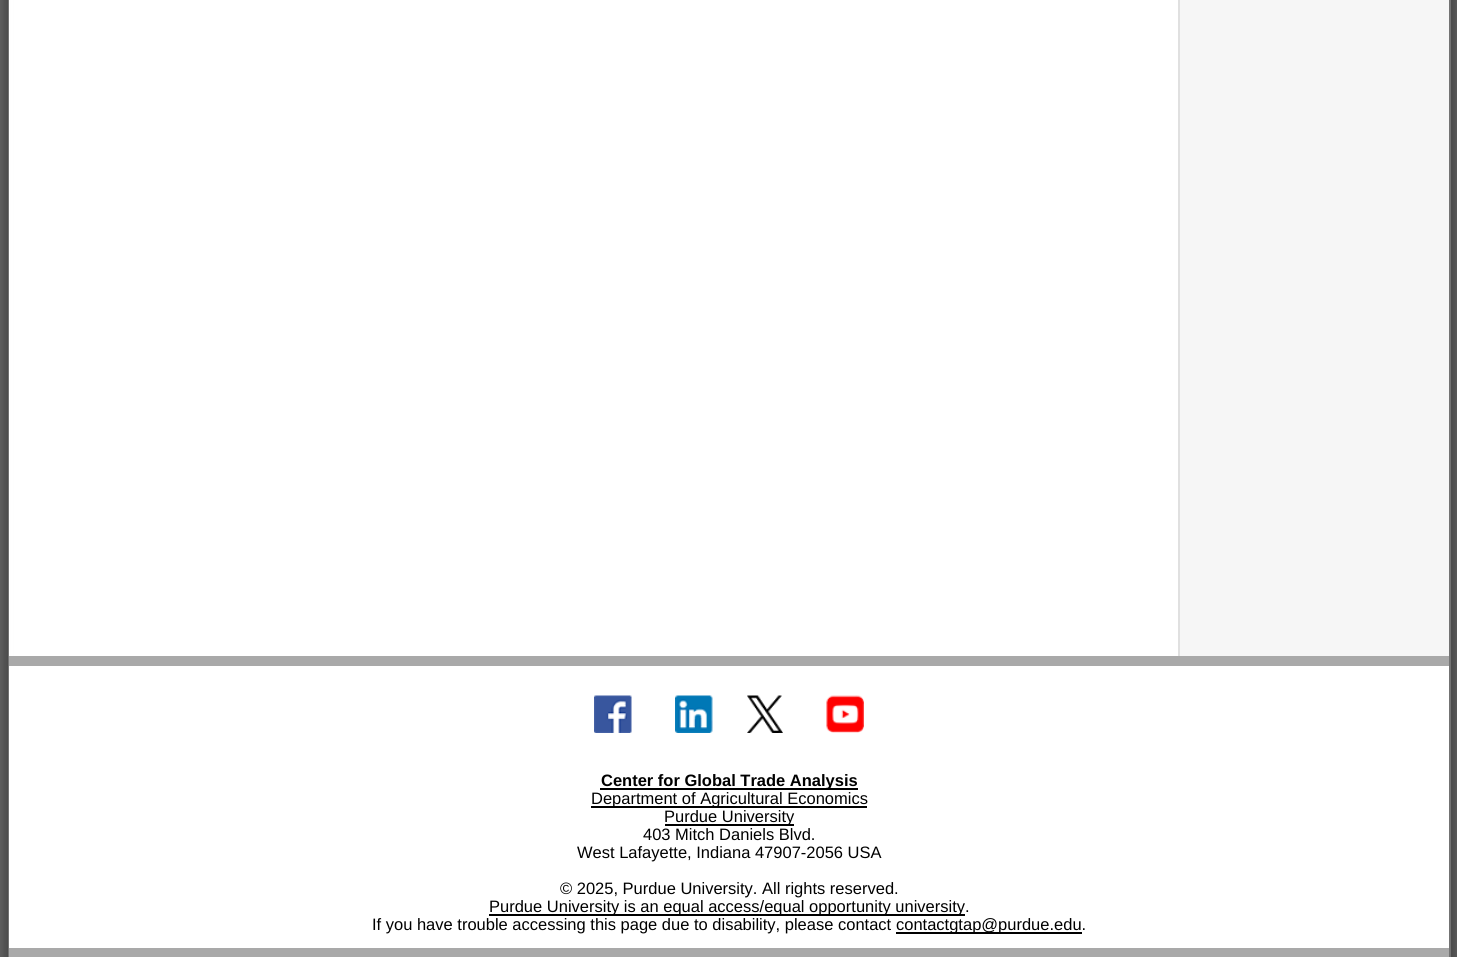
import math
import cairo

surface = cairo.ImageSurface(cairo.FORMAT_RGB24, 1457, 957)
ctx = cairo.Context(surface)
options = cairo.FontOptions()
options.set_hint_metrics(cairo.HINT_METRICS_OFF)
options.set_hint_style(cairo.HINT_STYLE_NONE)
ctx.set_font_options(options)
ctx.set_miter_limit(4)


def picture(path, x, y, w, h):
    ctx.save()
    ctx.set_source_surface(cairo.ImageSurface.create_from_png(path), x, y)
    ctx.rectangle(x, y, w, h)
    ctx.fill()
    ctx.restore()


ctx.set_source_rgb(1, 1, 1)
ctx.paint()
picture("img1.png", 0, 0, 1457, 957)
ctx.set_source_rgb(0.961, 0.961, 0.961)
ctx.rectangle(1180, 0, 269, 656)
ctx.fill()
ctx.rectangle(9, -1, 1441, 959)
ctx.set_source_rgb(0.451, 0.451, 0.451)
ctx.stroke()
ctx.set_source_rgb(1, 1, 1)
ctx.rectangle(9, 0, 1, 656)
ctx.fill()
ctx.set_source_rgb(0.878, 0.878, 0.878)
ctx.rectangle(1178, 0, 2, 656)
ctx.fill()
ctx.set_source_rgb(0.663, 0.663, 0.663)
ctx.rectangle(9, 656, 1440, 301)
ctx.fill()
ctx.set_source_rgb(1, 1, 1)
ctx.rectangle(9, 666, 1440, 282)
ctx.fill()
picture("img2.png", 594, 695, 38, 38)
picture("img3.png", 675, 695, 38, 38)
picture("img4.png", 747, 695, 36, 38)
picture("img5.png", 826, 695, 38, 38)
ctx.set_source_rgb(0, 0, 0)
ctx.rectangle(600, 788, 258, 2)
ctx.fill()
ctx.select_font_face("Liberation Sans", cairo.FONT_SLANT_NORMAL, cairo.FONT_WEIGHT_BOLD)
ctx.set_font_size(16.5)
ctx.move_to(601, 786)
ctx.show_text("Center for Global Trade Analysis")
ctx.rectangle(591, 806, 276, 2)
ctx.fill()
ctx.select_font_face("Liberation Sans")
ctx.move_to(591, 804)
ctx.show_text("Department of Agricultural Economics")
ctx.rectangle(665, 824, 129, 2)
ctx.fill()
ctx.move_to(664, 822)
ctx.show_text("Purdue University")
ctx.move_to(643, 840)
ctx.show_text("403 Mitch Daniels Blvd.")
ctx.move_to(577, 858)
ctx.show_text("West Lafayette, Indiana 47907-2056 USA")
ctx.move_to(560, 894)
ctx.show_text("© 2025, Purdue University. All rights reserved.")
ctx.rectangle(489, 914, 476, 2)
ctx.fill()
ctx.move_to(489, 912)
ctx.show_text("Purdue University is an equal access/equal opportunity university.")
ctx.move_to(372, 930)
ctx.show_text("If you have trouble accessing this page due to disability, please contact")
ctx.rectangle(896, 932, 186, 2)
ctx.fill()
ctx.move_to(896, 930)
ctx.show_text("contactgtap@purdue.edu.")
surface.write_to_png("page.png")
